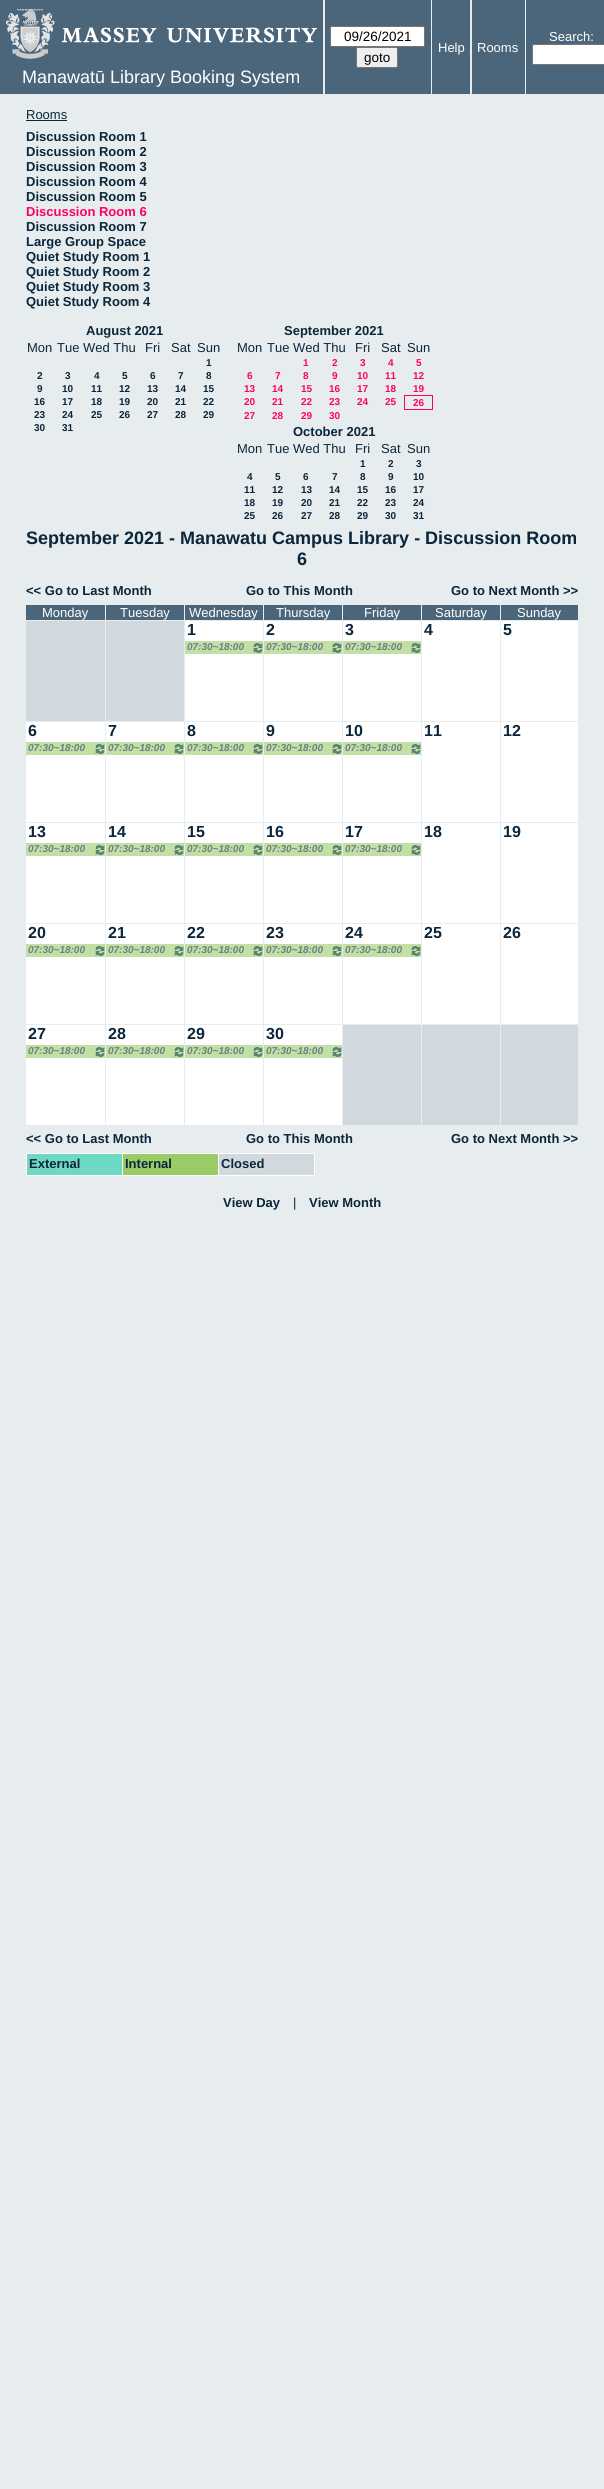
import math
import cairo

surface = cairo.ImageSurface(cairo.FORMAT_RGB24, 604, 2489)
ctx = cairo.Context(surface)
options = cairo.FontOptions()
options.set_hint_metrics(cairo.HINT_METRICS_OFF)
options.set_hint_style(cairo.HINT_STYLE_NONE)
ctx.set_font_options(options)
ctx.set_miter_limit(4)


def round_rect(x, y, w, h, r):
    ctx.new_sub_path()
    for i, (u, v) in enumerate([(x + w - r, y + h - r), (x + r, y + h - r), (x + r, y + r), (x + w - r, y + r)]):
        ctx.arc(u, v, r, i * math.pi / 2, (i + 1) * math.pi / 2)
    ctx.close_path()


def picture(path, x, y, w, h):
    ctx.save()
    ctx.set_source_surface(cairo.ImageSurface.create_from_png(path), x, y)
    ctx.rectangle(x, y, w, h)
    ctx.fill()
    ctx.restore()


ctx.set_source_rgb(0.906, 0.922, 0.933)
ctx.paint()
ctx.set_source_rgb(0.294, 0.4, 0.482)
ctx.rectangle(325, 0, 106, 94)
ctx.fill()
ctx.set_source_rgb(1, 1, 1)
round_rect(330.5, 26.5, 94, 20, 1.5)
ctx.fill_preserve()
ctx.set_source_rgb(0.463, 0.463, 0.463)
ctx.set_line_width(1)
ctx.stroke()
ctx.select_font_face("Liberation Sans")
ctx.set_font_size(13.5)
ctx.set_source_rgb(0, 0, 0)
ctx.move_to(344, 41)
ctx.show_text("09/26/2021")
ctx.set_source_rgb(0.937, 0.937, 0.937)
round_rect(356.5, 47.5, 41, 20, 1.5)
ctx.fill_preserve()
ctx.set_source_rgb(0.463, 0.463, 0.463)
ctx.stroke()
ctx.set_source_rgb(0, 0, 0)
ctx.move_to(364, 62)
ctx.show_text("goto")
ctx.set_source_rgb(0.294, 0.4, 0.482)
ctx.rectangle(526, 0, 78, 94)
ctx.fill()
ctx.set_font_size(13)
ctx.set_source_rgb(1, 1, 1)
ctx.move_to(549, 41)
ctx.show_text("Search:")
round_rect(532.5, 44.5, 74, 20, 1.5)
ctx.fill_preserve()
ctx.set_source_rgb(0.463, 0.463, 0.463)
ctx.stroke()
ctx.set_source_rgb(0.294, 0.4, 0.482)
ctx.rectangle(432, 0, 38, 94)
ctx.fill()
ctx.set_source_rgb(1, 1, 1)
ctx.move_to(438, 52)
ctx.show_text("Help")
ctx.set_source_rgb(0.294, 0.4, 0.482)
ctx.rectangle(472, 0, 53, 94)
ctx.fill()
ctx.set_source_rgb(1, 1, 1)
ctx.move_to(477, 52)
ctx.show_text("Rooms")
ctx.set_source_rgb(0.294, 0.4, 0.482)
ctx.rectangle(0, 0, 323, 94)
ctx.fill()
picture("img1.png", 6, 9, 311, 50)
ctx.set_font_size(18)
ctx.set_source_rgb(1, 1, 1)
ctx.move_to(22, 83)
ctx.show_text("Manawatū Library Booking System")
ctx.set_font_size(13)
ctx.set_source_rgb(0.043, 0.149, 0.231)
ctx.move_to(26, 119)
ctx.show_text("Rooms")
ctx.rectangle(26, 120, 41, 1)
ctx.fill()
ctx.select_font_face("Liberation Sans", cairo.FONT_SLANT_NORMAL, cairo.FONT_WEIGHT_BOLD)
ctx.move_to(26, 141)
ctx.show_text("Discussion Room 1")
ctx.move_to(26, 156)
ctx.show_text("Discussion Room 2")
ctx.move_to(26, 171)
ctx.show_text("Discussion Room 3")
ctx.move_to(26, 186)
ctx.show_text("Discussion Room 4")
ctx.move_to(26, 201)
ctx.show_text("Discussion Room 5")
ctx.set_source_rgb(1, 0, 0.4)
ctx.move_to(26, 216)
ctx.show_text("Discussion Room 6")
ctx.set_source_rgb(0.043, 0.149, 0.231)
ctx.move_to(26, 231)
ctx.show_text("Discussion Room 7")
ctx.move_to(26, 246)
ctx.show_text("Large Group Space")
ctx.move_to(26, 261)
ctx.show_text("Quiet Study Room 1")
ctx.move_to(26, 276)
ctx.show_text("Quiet Study Room 2")
ctx.move_to(26, 291)
ctx.show_text("Quiet Study Room 3")
ctx.move_to(26, 306)
ctx.show_text("Quiet Study Room 4")
ctx.move_to(86, 335)
ctx.show_text("August 2021")
ctx.select_font_face("Liberation Sans")
ctx.move_to(27, 352)
ctx.show_text("Mon")
ctx.move_to(57, 352)
ctx.show_text("Tue Wed Thu")
ctx.move_to(145, 352)
ctx.show_text("Fri")
ctx.move_to(171, 352)
ctx.show_text("Sat")
ctx.move_to(197, 352)
ctx.show_text("Sun")
ctx.select_font_face("Liberation Sans", cairo.FONT_SLANT_NORMAL, cairo.FONT_WEIGHT_BOLD)
ctx.set_font_size(10)
ctx.move_to(206, 366)
ctx.show_text("1")
ctx.move_to(37, 379)
ctx.show_text("2")
ctx.move_to(65, 379)
ctx.show_text("3")
ctx.move_to(94, 379)
ctx.show_text("4")
ctx.move_to(122, 379)
ctx.show_text("5")
ctx.move_to(150, 379)
ctx.show_text("6")
ctx.move_to(178, 379)
ctx.show_text("7")
ctx.move_to(206, 379)
ctx.show_text("8")
ctx.move_to(37, 392)
ctx.show_text("9")
ctx.move_to(62, 392)
ctx.show_text("10")
ctx.move_to(91, 392)
ctx.show_text("11")
ctx.move_to(119, 392)
ctx.show_text("12")
ctx.move_to(147, 392)
ctx.show_text("13")
ctx.move_to(175, 392)
ctx.show_text("14")
ctx.move_to(203, 392)
ctx.show_text("15")
ctx.move_to(34, 405)
ctx.show_text("16")
ctx.move_to(62, 405)
ctx.show_text("17")
ctx.move_to(91, 405)
ctx.show_text("18")
ctx.move_to(119, 405)
ctx.show_text("19")
ctx.move_to(147, 405)
ctx.show_text("20")
ctx.move_to(175, 405)
ctx.show_text("21")
ctx.move_to(203, 405)
ctx.show_text("22")
ctx.move_to(34, 418)
ctx.show_text("23")
ctx.move_to(62, 418)
ctx.show_text("24")
ctx.move_to(91, 418)
ctx.show_text("25")
ctx.move_to(119, 418)
ctx.show_text("26")
ctx.move_to(147, 418)
ctx.show_text("27")
ctx.move_to(175, 418)
ctx.show_text("28")
ctx.move_to(203, 418)
ctx.show_text("29")
ctx.move_to(34, 431)
ctx.show_text("30")
ctx.move_to(62, 431)
ctx.show_text("31")
ctx.set_font_size(13)
ctx.move_to(284, 335)
ctx.show_text("September 2021")
ctx.select_font_face("Liberation Sans")
ctx.move_to(237, 352)
ctx.show_text("Mon")
ctx.move_to(267, 352)
ctx.show_text("Tue Wed Thu")
ctx.move_to(355, 352)
ctx.show_text("Fri")
ctx.move_to(381, 352)
ctx.show_text("Sat")
ctx.move_to(407, 352)
ctx.show_text("Sun")
ctx.select_font_face("Liberation Sans", cairo.FONT_SLANT_NORMAL, cairo.FONT_WEIGHT_BOLD)
ctx.set_font_size(10)
ctx.set_source_rgb(1, 0, 0.4)
ctx.move_to(303, 366)
ctx.show_text("1")
ctx.move_to(332, 366)
ctx.show_text("2")
ctx.move_to(360, 366)
ctx.show_text("3")
ctx.move_to(388, 366)
ctx.show_text("4")
ctx.move_to(416, 366)
ctx.show_text("5")
ctx.move_to(247, 379)
ctx.show_text("6")
ctx.move_to(275, 379)
ctx.show_text("7")
ctx.move_to(303, 379)
ctx.show_text("8")
ctx.move_to(332, 379)
ctx.show_text("9")
ctx.move_to(357, 379)
ctx.show_text("10")
ctx.move_to(385, 379)
ctx.show_text("11")
ctx.move_to(413, 379)
ctx.show_text("12")
ctx.move_to(244, 392)
ctx.show_text("13")
ctx.move_to(272, 392)
ctx.show_text("14")
ctx.move_to(301, 392)
ctx.show_text("15")
ctx.move_to(329, 392)
ctx.show_text("16")
ctx.move_to(357, 392)
ctx.show_text("17")
ctx.move_to(385, 392)
ctx.show_text("18")
ctx.move_to(413, 392)
ctx.show_text("19")
ctx.move_to(244, 405)
ctx.show_text("20")
ctx.move_to(272, 405)
ctx.show_text("21")
ctx.move_to(301, 405)
ctx.show_text("22")
ctx.move_to(329, 405)
ctx.show_text("23")
ctx.move_to(357, 405)
ctx.show_text("24")
ctx.move_to(385, 405)
ctx.show_text("25")
ctx.rectangle(404, 395, 29, 1)
ctx.fill()
ctx.rectangle(432, 395, 1, 15)
ctx.fill()
ctx.rectangle(404, 409, 29, 1)
ctx.fill()
ctx.rectangle(404, 395, 1, 15)
ctx.fill()
ctx.move_to(413, 406)
ctx.show_text("26")
ctx.move_to(244, 419)
ctx.show_text("27")
ctx.move_to(272, 419)
ctx.show_text("28")
ctx.move_to(301, 419)
ctx.show_text("29")
ctx.move_to(329, 419)
ctx.show_text("30")
ctx.set_font_size(13)
ctx.set_source_rgb(0.043, 0.149, 0.231)
ctx.move_to(293, 436)
ctx.show_text("October 2021")
ctx.select_font_face("Liberation Sans")
ctx.move_to(237, 453)
ctx.show_text("Mon")
ctx.move_to(267, 453)
ctx.show_text("Tue Wed Thu")
ctx.move_to(355, 453)
ctx.show_text("Fri")
ctx.move_to(381, 453)
ctx.show_text("Sat")
ctx.move_to(407, 453)
ctx.show_text("Sun")
ctx.select_font_face("Liberation Sans", cairo.FONT_SLANT_NORMAL, cairo.FONT_WEIGHT_BOLD)
ctx.set_font_size(10)
ctx.move_to(360, 467)
ctx.show_text("1")
ctx.move_to(388, 467)
ctx.show_text("2")
ctx.move_to(416, 467)
ctx.show_text("3")
ctx.move_to(247, 480)
ctx.show_text("4")
ctx.move_to(275, 480)
ctx.show_text("5")
ctx.move_to(303, 480)
ctx.show_text("6")
ctx.move_to(332, 480)
ctx.show_text("7")
ctx.move_to(360, 480)
ctx.show_text("8")
ctx.move_to(388, 480)
ctx.show_text("9")
ctx.move_to(413, 480)
ctx.show_text("10")
ctx.move_to(244, 493)
ctx.show_text("11")
ctx.move_to(272, 493)
ctx.show_text("12")
ctx.move_to(301, 493)
ctx.show_text("13")
ctx.move_to(329, 493)
ctx.show_text("14")
ctx.move_to(357, 493)
ctx.show_text("15")
ctx.move_to(385, 493)
ctx.show_text("16")
ctx.move_to(413, 493)
ctx.show_text("17")
ctx.move_to(244, 506)
ctx.show_text("18")
ctx.move_to(272, 506)
ctx.show_text("19")
ctx.move_to(301, 506)
ctx.show_text("20")
ctx.move_to(329, 506)
ctx.show_text("21")
ctx.move_to(357, 506)
ctx.show_text("22")
ctx.move_to(385, 506)
ctx.show_text("23")
ctx.move_to(413, 506)
ctx.show_text("24")
ctx.move_to(244, 519)
ctx.show_text("25")
ctx.move_to(272, 519)
ctx.show_text("26")
ctx.move_to(301, 519)
ctx.show_text("27")
ctx.move_to(329, 519)
ctx.show_text("28")
ctx.move_to(357, 519)
ctx.show_text("29")
ctx.move_to(385, 519)
ctx.show_text("30")
ctx.move_to(413, 519)
ctx.show_text("31")
ctx.set_font_size(18)
ctx.move_to(26, 544)
ctx.show_text("September 2021 - Manawatu Campus Library - Discussion Room")
ctx.move_to(297, 565)
ctx.show_text("6")
ctx.set_font_size(13)
ctx.move_to(26, 595)
ctx.show_text("<< Go to Last Month")
ctx.move_to(246, 595)
ctx.show_text("Go to This Month")
ctx.move_to(451, 595)
ctx.show_text("Go to Next Month >>")
ctx.set_source_rgb(0.294, 0.4, 0.482)
ctx.rectangle(26, 605, 79, 15)
ctx.fill()
ctx.select_font_face("Liberation Sans")
ctx.set_source_rgb(1, 1, 1)
ctx.move_to(42, 617)
ctx.show_text("Monday")
ctx.set_source_rgb(0.294, 0.4, 0.482)
ctx.rectangle(106, 605, 78, 15)
ctx.fill()
ctx.set_source_rgb(1, 1, 1)
ctx.move_to(120, 617)
ctx.show_text("Tuesday")
ctx.set_source_rgb(0.294, 0.4, 0.482)
ctx.rectangle(185, 605, 78, 15)
ctx.fill()
ctx.set_source_rgb(1, 1, 1)
ctx.move_to(189, 617)
ctx.show_text("Wednesday")
ctx.set_source_rgb(0.294, 0.4, 0.482)
ctx.rectangle(264, 605, 78, 15)
ctx.fill()
ctx.set_source_rgb(1, 1, 1)
ctx.move_to(276, 617)
ctx.show_text("Thursday")
ctx.set_source_rgb(0.294, 0.4, 0.482)
ctx.rectangle(343, 605, 78, 15)
ctx.fill()
ctx.set_source_rgb(1, 1, 1)
ctx.move_to(364, 617)
ctx.show_text("Friday")
ctx.set_source_rgb(0.294, 0.4, 0.482)
ctx.rectangle(422, 605, 78, 15)
ctx.fill()
ctx.set_source_rgb(1, 1, 1)
ctx.move_to(435, 617)
ctx.show_text("Saturday")
ctx.set_source_rgb(0.294, 0.4, 0.482)
ctx.rectangle(501, 605, 77, 15)
ctx.fill()
ctx.set_source_rgb(1, 1, 1)
ctx.move_to(517, 617)
ctx.show_text("Sunday")
ctx.set_source_rgb(0.82, 0.851, 0.871)
ctx.rectangle(26, 621, 79, 100)
ctx.fill()
ctx.rectangle(106, 621, 78, 100)
ctx.fill()
ctx.set_source_rgb(1, 1, 1)
ctx.rectangle(185, 621, 78, 100)
ctx.fill()
ctx.select_font_face("Liberation Sans", cairo.FONT_SLANT_NORMAL, cairo.FONT_WEIGHT_BOLD)
ctx.set_font_size(16)
ctx.set_source_rgb(0.043, 0.149, 0.231)
ctx.move_to(187, 635)
ctx.show_text("1")
ctx.set_source_rgb(0.761, 0.878, 0.639)
ctx.rectangle(185, 641, 78, 13)
ctx.fill()
ctx.select_font_face("Liberation Sans", cairo.FONT_SLANT_ITALIC, cairo.FONT_WEIGHT_BOLD)
ctx.set_font_size(10)
ctx.set_source_rgb(0.427, 0.49, 0.537)
ctx.move_to(187, 650)
ctx.show_text("07:30~18:00")
picture("img2.png", 253, 643, 10, 10)
ctx.set_source_rgb(1, 1, 1)
ctx.rectangle(264, 621, 78, 100)
ctx.fill()
ctx.select_font_face("Liberation Sans", cairo.FONT_SLANT_NORMAL, cairo.FONT_WEIGHT_BOLD)
ctx.set_font_size(16)
ctx.set_source_rgb(0.043, 0.149, 0.231)
ctx.move_to(266, 635)
ctx.show_text("2")
ctx.set_source_rgb(0.761, 0.878, 0.639)
ctx.rectangle(264, 641, 78, 13)
ctx.fill()
ctx.select_font_face("Liberation Sans", cairo.FONT_SLANT_ITALIC, cairo.FONT_WEIGHT_BOLD)
ctx.set_font_size(10)
ctx.set_source_rgb(0.427, 0.49, 0.537)
ctx.move_to(266, 650)
ctx.show_text("07:30~18:00")
picture("img2.png", 332, 643, 10, 10)
ctx.set_source_rgb(1, 1, 1)
ctx.rectangle(343, 621, 78, 100)
ctx.fill()
ctx.select_font_face("Liberation Sans", cairo.FONT_SLANT_NORMAL, cairo.FONT_WEIGHT_BOLD)
ctx.set_font_size(16)
ctx.set_source_rgb(0.043, 0.149, 0.231)
ctx.move_to(345, 635)
ctx.show_text("3")
ctx.set_source_rgb(0.761, 0.878, 0.639)
ctx.rectangle(343, 641, 78, 13)
ctx.fill()
ctx.select_font_face("Liberation Sans", cairo.FONT_SLANT_ITALIC, cairo.FONT_WEIGHT_BOLD)
ctx.set_font_size(10)
ctx.set_source_rgb(0.427, 0.49, 0.537)
ctx.move_to(345, 650)
ctx.show_text("07:30~18:00")
picture("img2.png", 411, 643, 10, 10)
ctx.set_source_rgb(1, 1, 1)
ctx.rectangle(422, 621, 78, 100)
ctx.fill()
ctx.select_font_face("Liberation Sans", cairo.FONT_SLANT_NORMAL, cairo.FONT_WEIGHT_BOLD)
ctx.set_font_size(16)
ctx.set_source_rgb(0.043, 0.149, 0.231)
ctx.move_to(424, 635)
ctx.show_text("4")
ctx.set_source_rgb(1, 1, 1)
ctx.rectangle(501, 621, 77, 100)
ctx.fill()
ctx.set_source_rgb(0.043, 0.149, 0.231)
ctx.move_to(503, 635)
ctx.show_text("5")
ctx.set_source_rgb(1, 1, 1)
ctx.rectangle(26, 722, 79, 100)
ctx.fill()
ctx.set_source_rgb(0.043, 0.149, 0.231)
ctx.move_to(28, 736)
ctx.show_text("6")
ctx.set_source_rgb(0.761, 0.878, 0.639)
ctx.rectangle(26, 742, 79, 13)
ctx.fill()
ctx.select_font_face("Liberation Sans", cairo.FONT_SLANT_ITALIC, cairo.FONT_WEIGHT_BOLD)
ctx.set_font_size(10)
ctx.set_source_rgb(0.427, 0.49, 0.537)
ctx.move_to(28, 751)
ctx.show_text("07:30~18:00")
picture("img2.png", 95, 744, 10, 10)
ctx.set_source_rgb(1, 1, 1)
ctx.rectangle(106, 722, 78, 100)
ctx.fill()
ctx.select_font_face("Liberation Sans", cairo.FONT_SLANT_NORMAL, cairo.FONT_WEIGHT_BOLD)
ctx.set_font_size(16)
ctx.set_source_rgb(0.043, 0.149, 0.231)
ctx.move_to(108, 736)
ctx.show_text("7")
ctx.set_source_rgb(0.761, 0.878, 0.639)
ctx.rectangle(106, 742, 78, 13)
ctx.fill()
ctx.select_font_face("Liberation Sans", cairo.FONT_SLANT_ITALIC, cairo.FONT_WEIGHT_BOLD)
ctx.set_font_size(10)
ctx.set_source_rgb(0.427, 0.49, 0.537)
ctx.move_to(108, 751)
ctx.show_text("07:30~18:00")
picture("img2.png", 174, 744, 10, 10)
ctx.set_source_rgb(1, 1, 1)
ctx.rectangle(185, 722, 78, 100)
ctx.fill()
ctx.select_font_face("Liberation Sans", cairo.FONT_SLANT_NORMAL, cairo.FONT_WEIGHT_BOLD)
ctx.set_font_size(16)
ctx.set_source_rgb(0.043, 0.149, 0.231)
ctx.move_to(187, 736)
ctx.show_text("8")
ctx.set_source_rgb(0.761, 0.878, 0.639)
ctx.rectangle(185, 742, 78, 13)
ctx.fill()
ctx.select_font_face("Liberation Sans", cairo.FONT_SLANT_ITALIC, cairo.FONT_WEIGHT_BOLD)
ctx.set_font_size(10)
ctx.set_source_rgb(0.427, 0.49, 0.537)
ctx.move_to(187, 751)
ctx.show_text("07:30~18:00")
picture("img2.png", 253, 744, 10, 10)
ctx.set_source_rgb(1, 1, 1)
ctx.rectangle(264, 722, 78, 100)
ctx.fill()
ctx.select_font_face("Liberation Sans", cairo.FONT_SLANT_NORMAL, cairo.FONT_WEIGHT_BOLD)
ctx.set_font_size(16)
ctx.set_source_rgb(0.043, 0.149, 0.231)
ctx.move_to(266, 736)
ctx.show_text("9")
ctx.set_source_rgb(0.761, 0.878, 0.639)
ctx.rectangle(264, 742, 78, 13)
ctx.fill()
ctx.select_font_face("Liberation Sans", cairo.FONT_SLANT_ITALIC, cairo.FONT_WEIGHT_BOLD)
ctx.set_font_size(10)
ctx.set_source_rgb(0.427, 0.49, 0.537)
ctx.move_to(266, 751)
ctx.show_text("07:30~18:00")
picture("img2.png", 332, 744, 10, 10)
ctx.set_source_rgb(1, 1, 1)
ctx.rectangle(343, 722, 78, 100)
ctx.fill()
ctx.select_font_face("Liberation Sans", cairo.FONT_SLANT_NORMAL, cairo.FONT_WEIGHT_BOLD)
ctx.set_font_size(16)
ctx.set_source_rgb(0.043, 0.149, 0.231)
ctx.move_to(345, 736)
ctx.show_text("10")
ctx.set_source_rgb(0.761, 0.878, 0.639)
ctx.rectangle(343, 742, 78, 13)
ctx.fill()
ctx.select_font_face("Liberation Sans", cairo.FONT_SLANT_ITALIC, cairo.FONT_WEIGHT_BOLD)
ctx.set_font_size(10)
ctx.set_source_rgb(0.427, 0.49, 0.537)
ctx.move_to(345, 751)
ctx.show_text("07:30~18:00")
picture("img2.png", 411, 744, 10, 10)
ctx.set_source_rgb(1, 1, 1)
ctx.rectangle(422, 722, 78, 100)
ctx.fill()
ctx.select_font_face("Liberation Sans", cairo.FONT_SLANT_NORMAL, cairo.FONT_WEIGHT_BOLD)
ctx.set_font_size(16)
ctx.set_source_rgb(0.043, 0.149, 0.231)
ctx.move_to(424, 736)
ctx.show_text("11")
ctx.set_source_rgb(1, 1, 1)
ctx.rectangle(501, 722, 77, 100)
ctx.fill()
ctx.set_source_rgb(0.043, 0.149, 0.231)
ctx.move_to(503, 736)
ctx.show_text("12")
ctx.set_source_rgb(1, 1, 1)
ctx.rectangle(26, 823, 79, 100)
ctx.fill()
ctx.set_source_rgb(0.043, 0.149, 0.231)
ctx.move_to(28, 837)
ctx.show_text("13")
ctx.set_source_rgb(0.761, 0.878, 0.639)
ctx.rectangle(26, 843, 79, 13)
ctx.fill()
ctx.select_font_face("Liberation Sans", cairo.FONT_SLANT_ITALIC, cairo.FONT_WEIGHT_BOLD)
ctx.set_font_size(10)
ctx.set_source_rgb(0.427, 0.49, 0.537)
ctx.move_to(28, 852)
ctx.show_text("07:30~18:00")
picture("img2.png", 95, 845, 10, 10)
ctx.set_source_rgb(1, 1, 1)
ctx.rectangle(106, 823, 78, 100)
ctx.fill()
ctx.select_font_face("Liberation Sans", cairo.FONT_SLANT_NORMAL, cairo.FONT_WEIGHT_BOLD)
ctx.set_font_size(16)
ctx.set_source_rgb(0.043, 0.149, 0.231)
ctx.move_to(108, 837)
ctx.show_text("14")
ctx.set_source_rgb(0.761, 0.878, 0.639)
ctx.rectangle(106, 843, 78, 13)
ctx.fill()
ctx.select_font_face("Liberation Sans", cairo.FONT_SLANT_ITALIC, cairo.FONT_WEIGHT_BOLD)
ctx.set_font_size(10)
ctx.set_source_rgb(0.427, 0.49, 0.537)
ctx.move_to(108, 852)
ctx.show_text("07:30~18:00")
picture("img2.png", 174, 845, 10, 10)
ctx.set_source_rgb(1, 1, 1)
ctx.rectangle(185, 823, 78, 100)
ctx.fill()
ctx.select_font_face("Liberation Sans", cairo.FONT_SLANT_NORMAL, cairo.FONT_WEIGHT_BOLD)
ctx.set_font_size(16)
ctx.set_source_rgb(0.043, 0.149, 0.231)
ctx.move_to(187, 837)
ctx.show_text("15")
ctx.set_source_rgb(0.761, 0.878, 0.639)
ctx.rectangle(185, 843, 78, 13)
ctx.fill()
ctx.select_font_face("Liberation Sans", cairo.FONT_SLANT_ITALIC, cairo.FONT_WEIGHT_BOLD)
ctx.set_font_size(10)
ctx.set_source_rgb(0.427, 0.49, 0.537)
ctx.move_to(187, 852)
ctx.show_text("07:30~18:00")
picture("img2.png", 253, 845, 10, 10)
ctx.set_source_rgb(1, 1, 1)
ctx.rectangle(264, 823, 78, 100)
ctx.fill()
ctx.select_font_face("Liberation Sans", cairo.FONT_SLANT_NORMAL, cairo.FONT_WEIGHT_BOLD)
ctx.set_font_size(16)
ctx.set_source_rgb(0.043, 0.149, 0.231)
ctx.move_to(266, 837)
ctx.show_text("16")
ctx.set_source_rgb(0.761, 0.878, 0.639)
ctx.rectangle(264, 843, 78, 13)
ctx.fill()
ctx.select_font_face("Liberation Sans", cairo.FONT_SLANT_ITALIC, cairo.FONT_WEIGHT_BOLD)
ctx.set_font_size(10)
ctx.set_source_rgb(0.427, 0.49, 0.537)
ctx.move_to(266, 852)
ctx.show_text("07:30~18:00")
picture("img2.png", 332, 845, 10, 10)
ctx.set_source_rgb(1, 1, 1)
ctx.rectangle(343, 823, 78, 100)
ctx.fill()
ctx.select_font_face("Liberation Sans", cairo.FONT_SLANT_NORMAL, cairo.FONT_WEIGHT_BOLD)
ctx.set_font_size(16)
ctx.set_source_rgb(0.043, 0.149, 0.231)
ctx.move_to(345, 837)
ctx.show_text("17")
ctx.set_source_rgb(0.761, 0.878, 0.639)
ctx.rectangle(343, 843, 78, 13)
ctx.fill()
ctx.select_font_face("Liberation Sans", cairo.FONT_SLANT_ITALIC, cairo.FONT_WEIGHT_BOLD)
ctx.set_font_size(10)
ctx.set_source_rgb(0.427, 0.49, 0.537)
ctx.move_to(345, 852)
ctx.show_text("07:30~18:00")
picture("img2.png", 411, 845, 10, 10)
ctx.set_source_rgb(1, 1, 1)
ctx.rectangle(422, 823, 78, 100)
ctx.fill()
ctx.select_font_face("Liberation Sans", cairo.FONT_SLANT_NORMAL, cairo.FONT_WEIGHT_BOLD)
ctx.set_font_size(16)
ctx.set_source_rgb(0.043, 0.149, 0.231)
ctx.move_to(424, 837)
ctx.show_text("18")
ctx.set_source_rgb(1, 1, 1)
ctx.rectangle(501, 823, 77, 100)
ctx.fill()
ctx.set_source_rgb(0.043, 0.149, 0.231)
ctx.move_to(503, 837)
ctx.show_text("19")
ctx.set_source_rgb(1, 1, 1)
ctx.rectangle(26, 924, 79, 100)
ctx.fill()
ctx.set_source_rgb(0.043, 0.149, 0.231)
ctx.move_to(28, 938)
ctx.show_text("20")
ctx.set_source_rgb(0.761, 0.878, 0.639)
ctx.rectangle(26, 944, 79, 13)
ctx.fill()
ctx.select_font_face("Liberation Sans", cairo.FONT_SLANT_ITALIC, cairo.FONT_WEIGHT_BOLD)
ctx.set_font_size(10)
ctx.set_source_rgb(0.427, 0.49, 0.537)
ctx.move_to(28, 953)
ctx.show_text("07:30~18:00")
picture("img2.png", 95, 946, 10, 10)
ctx.set_source_rgb(1, 1, 1)
ctx.rectangle(106, 924, 78, 100)
ctx.fill()
ctx.select_font_face("Liberation Sans", cairo.FONT_SLANT_NORMAL, cairo.FONT_WEIGHT_BOLD)
ctx.set_font_size(16)
ctx.set_source_rgb(0.043, 0.149, 0.231)
ctx.move_to(108, 938)
ctx.show_text("21")
ctx.set_source_rgb(0.761, 0.878, 0.639)
ctx.rectangle(106, 944, 78, 13)
ctx.fill()
ctx.select_font_face("Liberation Sans", cairo.FONT_SLANT_ITALIC, cairo.FONT_WEIGHT_BOLD)
ctx.set_font_size(10)
ctx.set_source_rgb(0.427, 0.49, 0.537)
ctx.move_to(108, 953)
ctx.show_text("07:30~18:00")
picture("img2.png", 174, 946, 10, 10)
ctx.set_source_rgb(1, 1, 1)
ctx.rectangle(185, 924, 78, 100)
ctx.fill()
ctx.select_font_face("Liberation Sans", cairo.FONT_SLANT_NORMAL, cairo.FONT_WEIGHT_BOLD)
ctx.set_font_size(16)
ctx.set_source_rgb(0.043, 0.149, 0.231)
ctx.move_to(187, 938)
ctx.show_text("22")
ctx.set_source_rgb(0.761, 0.878, 0.639)
ctx.rectangle(185, 944, 78, 13)
ctx.fill()
ctx.select_font_face("Liberation Sans", cairo.FONT_SLANT_ITALIC, cairo.FONT_WEIGHT_BOLD)
ctx.set_font_size(10)
ctx.set_source_rgb(0.427, 0.49, 0.537)
ctx.move_to(187, 953)
ctx.show_text("07:30~18:00")
picture("img2.png", 253, 946, 10, 10)
ctx.set_source_rgb(1, 1, 1)
ctx.rectangle(264, 924, 78, 100)
ctx.fill()
ctx.select_font_face("Liberation Sans", cairo.FONT_SLANT_NORMAL, cairo.FONT_WEIGHT_BOLD)
ctx.set_font_size(16)
ctx.set_source_rgb(0.043, 0.149, 0.231)
ctx.move_to(266, 938)
ctx.show_text("23")
ctx.set_source_rgb(0.761, 0.878, 0.639)
ctx.rectangle(264, 944, 78, 13)
ctx.fill()
ctx.select_font_face("Liberation Sans", cairo.FONT_SLANT_ITALIC, cairo.FONT_WEIGHT_BOLD)
ctx.set_font_size(10)
ctx.set_source_rgb(0.427, 0.49, 0.537)
ctx.move_to(266, 953)
ctx.show_text("07:30~18:00")
picture("img2.png", 332, 946, 10, 10)
ctx.set_source_rgb(1, 1, 1)
ctx.rectangle(343, 924, 78, 100)
ctx.fill()
ctx.select_font_face("Liberation Sans", cairo.FONT_SLANT_NORMAL, cairo.FONT_WEIGHT_BOLD)
ctx.set_font_size(16)
ctx.set_source_rgb(0.043, 0.149, 0.231)
ctx.move_to(345, 938)
ctx.show_text("24")
ctx.set_source_rgb(0.761, 0.878, 0.639)
ctx.rectangle(343, 944, 78, 13)
ctx.fill()
ctx.select_font_face("Liberation Sans", cairo.FONT_SLANT_ITALIC, cairo.FONT_WEIGHT_BOLD)
ctx.set_font_size(10)
ctx.set_source_rgb(0.427, 0.49, 0.537)
ctx.move_to(345, 953)
ctx.show_text("07:30~18:00")
picture("img2.png", 411, 946, 10, 10)
ctx.set_source_rgb(1, 1, 1)
ctx.rectangle(422, 924, 78, 100)
ctx.fill()
ctx.select_font_face("Liberation Sans", cairo.FONT_SLANT_NORMAL, cairo.FONT_WEIGHT_BOLD)
ctx.set_font_size(16)
ctx.set_source_rgb(0.043, 0.149, 0.231)
ctx.move_to(424, 938)
ctx.show_text("25")
ctx.set_source_rgb(1, 1, 1)
ctx.rectangle(501, 924, 77, 100)
ctx.fill()
ctx.set_source_rgb(0.043, 0.149, 0.231)
ctx.move_to(503, 938)
ctx.show_text("26")
ctx.set_source_rgb(1, 1, 1)
ctx.rectangle(26, 1025, 79, 100)
ctx.fill()
ctx.set_source_rgb(0.043, 0.149, 0.231)
ctx.move_to(28, 1039)
ctx.show_text("27")
ctx.set_source_rgb(0.761, 0.878, 0.639)
ctx.rectangle(26, 1045, 79, 13)
ctx.fill()
ctx.select_font_face("Liberation Sans", cairo.FONT_SLANT_ITALIC, cairo.FONT_WEIGHT_BOLD)
ctx.set_font_size(10)
ctx.set_source_rgb(0.427, 0.49, 0.537)
ctx.move_to(28, 1054)
ctx.show_text("07:30~18:00")
picture("img2.png", 95, 1047, 10, 10)
ctx.set_source_rgb(1, 1, 1)
ctx.rectangle(106, 1025, 78, 100)
ctx.fill()
ctx.select_font_face("Liberation Sans", cairo.FONT_SLANT_NORMAL, cairo.FONT_WEIGHT_BOLD)
ctx.set_font_size(16)
ctx.set_source_rgb(0.043, 0.149, 0.231)
ctx.move_to(108, 1039)
ctx.show_text("28")
ctx.set_source_rgb(0.761, 0.878, 0.639)
ctx.rectangle(106, 1045, 78, 13)
ctx.fill()
ctx.select_font_face("Liberation Sans", cairo.FONT_SLANT_ITALIC, cairo.FONT_WEIGHT_BOLD)
ctx.set_font_size(10)
ctx.set_source_rgb(0.427, 0.49, 0.537)
ctx.move_to(108, 1054)
ctx.show_text("07:30~18:00")
picture("img2.png", 174, 1047, 10, 10)
ctx.set_source_rgb(1, 1, 1)
ctx.rectangle(185, 1025, 78, 100)
ctx.fill()
ctx.select_font_face("Liberation Sans", cairo.FONT_SLANT_NORMAL, cairo.FONT_WEIGHT_BOLD)
ctx.set_font_size(16)
ctx.set_source_rgb(0.043, 0.149, 0.231)
ctx.move_to(187, 1039)
ctx.show_text("29")
ctx.set_source_rgb(0.761, 0.878, 0.639)
ctx.rectangle(185, 1045, 78, 13)
ctx.fill()
ctx.select_font_face("Liberation Sans", cairo.FONT_SLANT_ITALIC, cairo.FONT_WEIGHT_BOLD)
ctx.set_font_size(10)
ctx.set_source_rgb(0.427, 0.49, 0.537)
ctx.move_to(187, 1054)
ctx.show_text("07:30~18:00")
picture("img2.png", 253, 1047, 10, 10)
ctx.set_source_rgb(1, 1, 1)
ctx.rectangle(264, 1025, 78, 100)
ctx.fill()
ctx.select_font_face("Liberation Sans", cairo.FONT_SLANT_NORMAL, cairo.FONT_WEIGHT_BOLD)
ctx.set_font_size(16)
ctx.set_source_rgb(0.043, 0.149, 0.231)
ctx.move_to(266, 1039)
ctx.show_text("30")
ctx.set_source_rgb(0.761, 0.878, 0.639)
ctx.rectangle(264, 1045, 78, 13)
ctx.fill()
ctx.select_font_face("Liberation Sans", cairo.FONT_SLANT_ITALIC, cairo.FONT_WEIGHT_BOLD)
ctx.set_font_size(10)
ctx.set_source_rgb(0.427, 0.49, 0.537)
ctx.move_to(266, 1054)
ctx.show_text("07:30~18:00")
picture("img2.png", 332, 1047, 10, 10)
ctx.set_source_rgb(0.82, 0.851, 0.871)
ctx.rectangle(343, 1025, 78, 100)
ctx.fill()
ctx.rectangle(422, 1025, 78, 100)
ctx.fill()
ctx.rectangle(501, 1025, 77, 100)
ctx.fill()
ctx.select_font_face("Liberation Sans", cairo.FONT_SLANT_NORMAL, cairo.FONT_WEIGHT_BOLD)
ctx.set_font_size(13)
ctx.set_source_rgb(0.043, 0.149, 0.231)
ctx.move_to(26, 1143)
ctx.show_text("<< Go to Last Month")
ctx.move_to(246, 1143)
ctx.show_text("Go to This Month")
ctx.move_to(451, 1143)
ctx.show_text("Go to Next Month >>")
ctx.set_source_rgb(0.427, 0.851, 0.769)
ctx.rectangle(27, 1154, 95, 21)
ctx.fill()
ctx.set_source_rgb(1, 1, 1)
ctx.rectangle(218, 1153, 97, 1)
ctx.fill()
ctx.rectangle(314, 1153, 1, 23)
ctx.fill()
ctx.rectangle(218, 1175, 97, 1)
ctx.fill()
ctx.rectangle(218, 1153, 1, 23)
ctx.fill()
ctx.rectangle(122, 1153, 97, 1)
ctx.fill()
ctx.rectangle(122, 1175, 97, 1)
ctx.fill()
ctx.rectangle(122, 1153, 1, 23)
ctx.fill()
ctx.rectangle(26, 1153, 97, 1)
ctx.fill()
ctx.rectangle(26, 1175, 97, 1)
ctx.fill()
ctx.rectangle(26, 1153, 1, 23)
ctx.fill()
ctx.set_source_rgb(0.043, 0.149, 0.231)
ctx.move_to(29, 1168)
ctx.show_text("External")
ctx.set_source_rgb(0.6, 0.8, 0.4)
ctx.rectangle(123, 1154, 95, 21)
ctx.fill()
ctx.set_source_rgb(0.043, 0.149, 0.231)
ctx.move_to(125, 1168)
ctx.show_text("Internal")
ctx.set_source_rgb(0.82, 0.851, 0.871)
ctx.rectangle(219, 1154, 95, 21)
ctx.fill()
ctx.set_source_rgb(0.043, 0.149, 0.231)
ctx.move_to(221, 1168)
ctx.show_text("Closed")
ctx.move_to(223, 1207)
ctx.show_text("View Day")
ctx.select_font_face("Liberation Sans")
ctx.move_to(293, 1207)
ctx.show_text("|")
ctx.select_font_face("Liberation Sans", cairo.FONT_SLANT_NORMAL, cairo.FONT_WEIGHT_BOLD)
ctx.move_to(309, 1207)
ctx.show_text("View Month")
surface.write_to_png("page.png")
